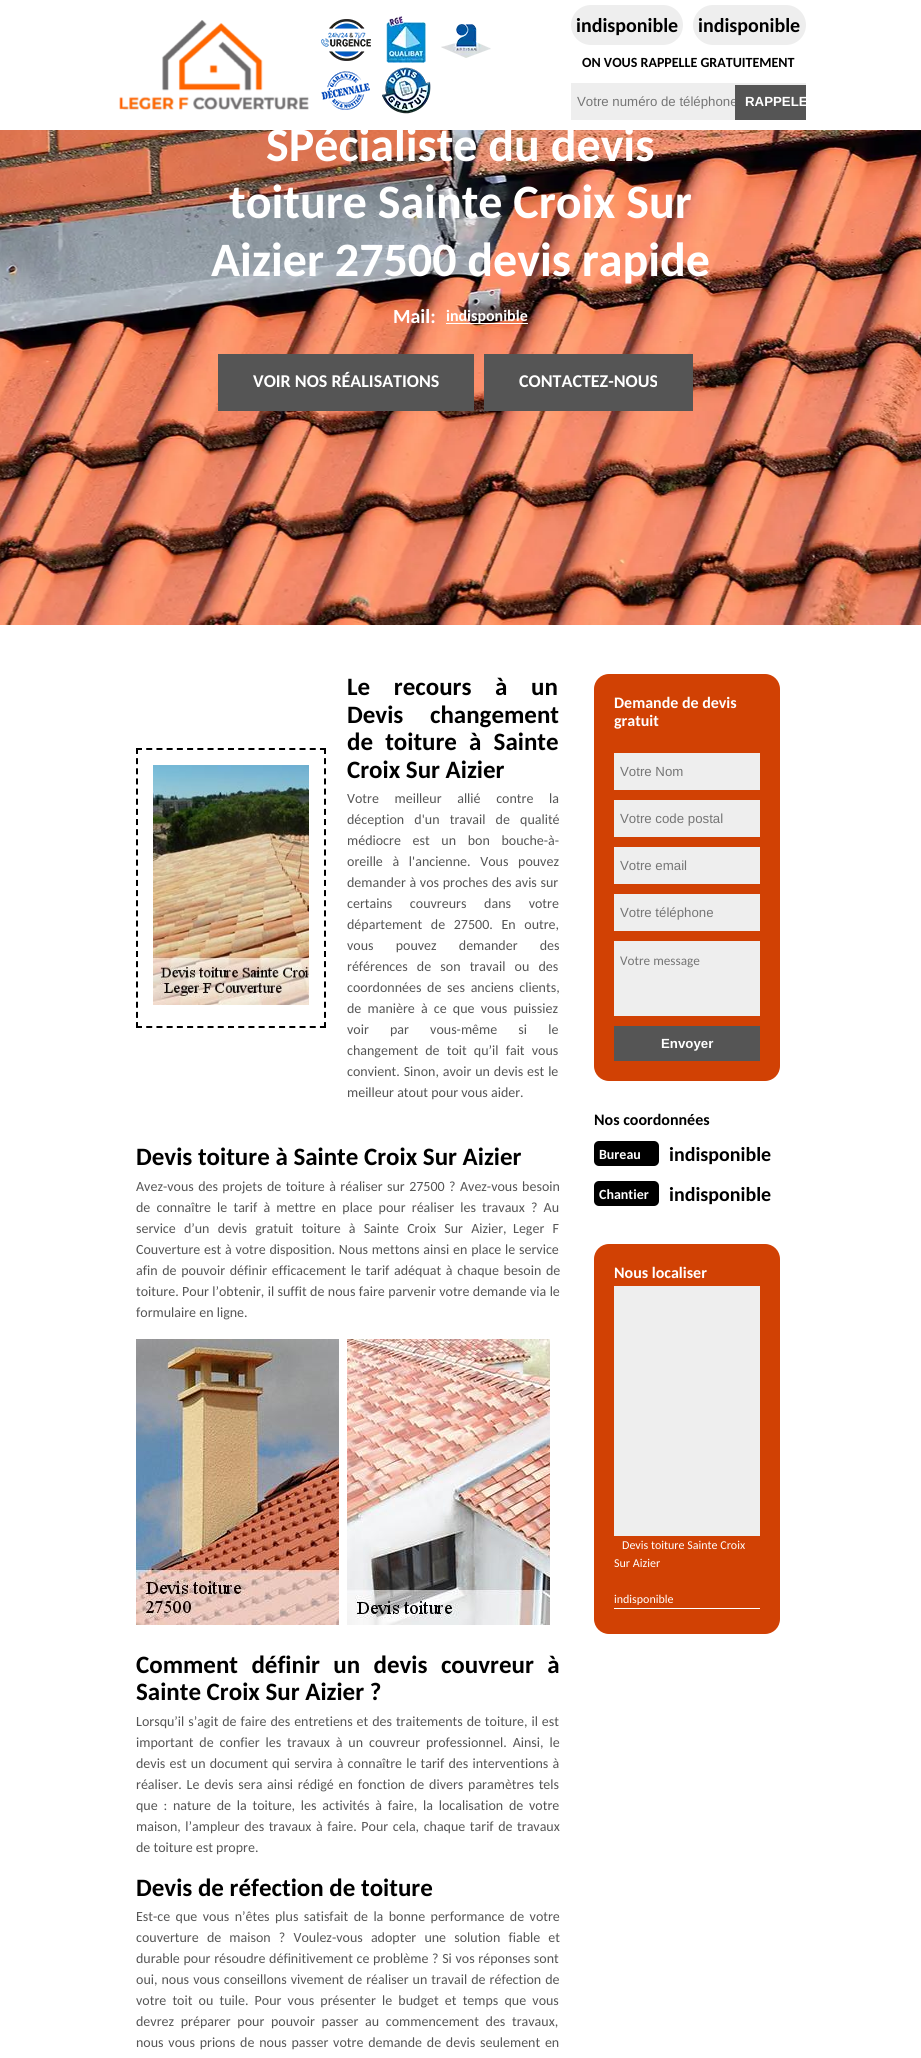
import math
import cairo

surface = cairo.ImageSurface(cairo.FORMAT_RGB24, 921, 2058)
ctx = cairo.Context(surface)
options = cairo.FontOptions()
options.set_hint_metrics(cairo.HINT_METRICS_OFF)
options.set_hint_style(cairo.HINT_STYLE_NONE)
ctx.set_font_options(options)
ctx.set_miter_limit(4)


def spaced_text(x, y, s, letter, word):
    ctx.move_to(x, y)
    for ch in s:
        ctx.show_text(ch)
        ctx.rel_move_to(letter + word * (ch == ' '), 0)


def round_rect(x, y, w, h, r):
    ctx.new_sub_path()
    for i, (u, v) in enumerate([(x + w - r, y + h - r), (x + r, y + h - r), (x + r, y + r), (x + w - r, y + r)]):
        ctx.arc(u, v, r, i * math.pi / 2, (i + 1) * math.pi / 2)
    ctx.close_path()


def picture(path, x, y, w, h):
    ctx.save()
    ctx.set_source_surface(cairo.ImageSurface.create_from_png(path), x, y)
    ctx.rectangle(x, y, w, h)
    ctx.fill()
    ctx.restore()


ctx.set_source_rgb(1, 1, 1)
ctx.paint()
picture("img1.png", 119, 20, 190, 90)
picture("img2.png", 321, 19, 50, 42)
picture("img3.png", 386, 16, 40, 47)
picture("img4.png", 441, 24, 50, 34)
picture("img5.png", 321, 71, 49, 39)
picture("img6.png", 382, 67, 49, 47)
ctx.set_source_rgb(0.933, 0.933, 0.933)
round_rect(571, 5, 112, 40, 20)
ctx.fill()
ctx.select_font_face("Carlito", cairo.FONT_SLANT_NORMAL, cairo.FONT_WEIGHT_BOLD)
ctx.set_font_size(20)
ctx.set_source_rgb(0, 0, 0)
ctx.move_to(576, 32)
ctx.show_text("indisponible")
ctx.set_source_rgb(0.933, 0.933, 0.933)
round_rect(693, 5, 113, 40, 20)
ctx.fill()
ctx.set_source_rgb(0, 0, 0)
ctx.move_to(698, 32)
ctx.show_text("indisponible")
ctx.set_font_size(14)
ctx.move_to(582, 67)
ctx.show_text("ON VOUS RAPPELLE GRATUITEMENT")
ctx.set_source_rgb(0.933, 0.933, 0.933)
ctx.rectangle(571, 83, 235, 37)
ctx.fill()
ctx.select_font_face("Liberation Sans")
ctx.set_font_size(13.25)
ctx.set_source_rgb(0.459, 0.459, 0.459)
ctx.move_to(577, 106)
ctx.show_text("Votre numéro de téléphone")
ctx.set_source_rgb(0.333, 0.333, 0.333)
ctx.rectangle(735, 85, 71, 35)
ctx.fill()
ctx.save()
ctx.rectangle(735, 85, 71, 35)
ctx.clip()
ctx.select_font_face("Liberation Sans", cairo.FONT_SLANT_NORMAL, cairo.FONT_WEIGHT_BOLD)
ctx.set_source_rgb(1, 1, 1)
ctx.move_to(745, 106)
ctx.show_text("RAPPELE")
ctx.restore()
picture("img7.png", 0, 130, 921, 495)
ctx.select_font_face("Carlito", cairo.FONT_SLANT_NORMAL, cairo.FONT_WEIGHT_BOLD)
ctx.set_font_size(48)
ctx.set_source_rgb(1, 1, 1)
ctx.move_to(266, 161)
ctx.show_text("SPécialiste du devis")
ctx.move_to(229, 218)
ctx.show_text("toiture Sainte Croix Sur")
ctx.move_to(211, 276)
ctx.show_text("Aizier 27500 devis rapide")
ctx.set_font_size(20)
ctx.move_to(393, 323)
ctx.show_text("Mail:")
ctx.rectangle(446, 323, 82, 1)
ctx.fill()
ctx.set_font_size(16)
ctx.move_to(446, 321)
ctx.show_text("indisponible")
ctx.set_source_rgb(0.333, 0.333, 0.333)
ctx.rectangle(218, 354, 256, 57)
ctx.fill()
ctx.set_font_size(18)
ctx.set_source_rgb(1, 1, 1)
ctx.move_to(253, 387)
ctx.show_text("VOIR NOS RÉALISATIONS")
ctx.set_source_rgb(0.333, 0.333, 0.333)
ctx.rectangle(484, 354, 209, 57)
ctx.fill()
ctx.set_source_rgb(1, 1, 1)
ctx.move_to(519, 387)
ctx.show_text("CONTACTEZ-NOUS")
ctx.new_path()
ctx.move_to(136, 749)
ctx.line_to(326, 749)
ctx.set_source_rgb(0, 0, 0)
ctx.set_dash([6, 4.22])
ctx.stroke()
ctx.new_path()
ctx.move_to(325, 748)
ctx.line_to(325, 1028)
ctx.set_dash([6, 4.15])
ctx.stroke()
ctx.new_path()
ctx.move_to(136, 1027)
ctx.line_to(326, 1027)
ctx.set_dash([6, 4.22])
ctx.stroke()
ctx.new_path()
ctx.move_to(137, 748)
ctx.line_to(137, 1028)
ctx.set_dash([6, 4.15])
ctx.stroke()
picture("img8.png", 153, 765, 156, 240)
ctx.set_font_size(25)
spaced_text(347, 695, "Le recours à un", 0, 18)
spaced_text(347, 723, "Devis changement", 0, 21)
spaced_text(347, 750, "de toiture à Sainte", 0, 6.5)
ctx.move_to(347, 778)
ctx.show_text("Croix Sur Aizier")
ctx.select_font_face("Carlito")
ctx.set_font_size(14)
ctx.set_source_rgb(0.333, 0.333, 0.333)
spaced_text(347, 803, "Votre meilleur allié contre la", 0, 12.5)
spaced_text(347, 824, "déception d'un travail de qualité", 0, 7)
spaced_text(347, 845, "médiocre est un bon bouche-à-", 0, 8.5)
spaced_text(347, 866, "oreille à l'ancienne. Vous pouvez", 0, 6.5)
spaced_text(347, 887, "demander à vos proches des avis sur", 0, 0.5)
spaced_text(347, 908, "certains couvreurs dans votre", 0, 14.5)
spaced_text(347, 929, "département de 27500. En outre,", 0, 5.5)
spaced_text(347, 950, "vous pouvez demander des", 0, 19)
spaced_text(347, 971, "références de son travail ou des", 0, 6)
spaced_text(347, 992, "coordonnées de ses anciens clients,", 0, 2.5)
spaced_text(347, 1013, "de manière à ce que vous puissiez", 0, 3)
spaced_text(347, 1034, "voir par vous-même si le", 0, 18)
spaced_text(347, 1055, "changement de toit qu’il fait vous", 0, 4)
spaced_text(347, 1076, "convient. Sinon, avoir un devis est le", 0, 0.75)
ctx.move_to(347, 1097)
ctx.show_text("meilleur atout pour vous aider.")
ctx.select_font_face("Carlito", cairo.FONT_SLANT_NORMAL, cairo.FONT_WEIGHT_BOLD)
ctx.set_font_size(25)
ctx.set_source_rgb(0, 0, 0)
ctx.move_to(136, 1165)
ctx.show_text("Devis toiture à Sainte Croix Sur Aizier")
ctx.select_font_face("Carlito")
ctx.set_font_size(14)
ctx.set_source_rgb(0.333, 0.333, 0.333)
spaced_text(136, 1191, "Avez-vous des projets de toiture à réaliser sur 27500 ? Avez-vous besoin", 0, 1.25)
spaced_text(136, 1212, "de connaître le tarif à mettre en place pour réaliser les travaux ? Au", 0, 3)
spaced_text(136, 1233, "service d’un devis gratuit toiture à Sainte Croix Sur Aizier,", 0, 5)
spaced_text(513, 1233, "Leger F", 0, 5)
spaced_text(136, 1254, "Couverture est à votre disposition. Nous mettons ainsi en place le service", 0, 0.6)
spaced_text(136, 1275, "afin de pouvoir définir efficacement le tarif adéquat à chaque besoin de", 0, 1.5)
spaced_text(136, 1296, "toiture. Pour l’obtenir, il suffit de nous faire parvenir votre demande via le", 0, 0.2)
ctx.move_to(136, 1317)
ctx.show_text("formulaire en ligne.")
picture("img9.png", 136, 1339, 203, 286)
picture("img10.png", 347, 1339, 203, 286)
ctx.select_font_face("Carlito", cairo.FONT_SLANT_NORMAL, cairo.FONT_WEIGHT_BOLD)
ctx.set_font_size(25)
ctx.set_source_rgb(0, 0, 0)
spaced_text(136, 1673, "Comment définir un devis couvreur à", 0, 7.75)
ctx.move_to(136, 1700)
ctx.show_text("Sainte Croix Sur Aizier ?")
ctx.select_font_face("Carlito")
ctx.set_font_size(14)
ctx.set_source_rgb(0.333, 0.333, 0.333)
spaced_text(136, 1726, "Lorsqu’il s’agit de faire des entretiens et des traitements de toiture, il est", 0, 0.75)
spaced_text(136, 1747, "important de confier les travaux à un couvreur professionnel. Ainsi, le", 0, 2.75)
spaced_text(136, 1768, "devis est un document qui servira à connaître le tarif des interventions à", 0, 1)
spaced_text(136, 1789, "réaliser. Le devis sera ainsi rédigé en fonction de divers paramètres tels", 0, 1.6)
spaced_text(136, 1810, "que : nature de la toiture, les activités à faire, la localisation de votre", 0, 2.6)
spaced_text(136, 1831, "maison, l’ampleur des travaux à faire. Pour cela, chaque tarif de travaux", 0, 1.4)
ctx.move_to(136, 1852)
ctx.show_text("de toiture est propre.")
ctx.select_font_face("Carlito", cairo.FONT_SLANT_NORMAL, cairo.FONT_WEIGHT_BOLD)
ctx.set_font_size(25)
ctx.set_source_rgb(0, 0, 0)
ctx.move_to(136, 1896)
ctx.show_text("Devis de réfection de toiture")
ctx.select_font_face("Carlito")
ctx.set_font_size(14)
ctx.set_source_rgb(0.333, 0.333, 0.333)
spaced_text(136, 1921, "Est-ce que vous n’êtes plus satisfait de la bonne performance de votre", 0, 2.25)
spaced_text(136, 1942, "couverture de maison ? Voulez-vous adopter une solution fiable et", 0, 5)
spaced_text(136, 1963, "durable pour résoudre définitivement ce problème ? Si vos réponses sont", 0, 0.5)
spaced_text(136, 1984, "oui, nous vous conseillons vivement de réaliser un travail de réfection de", 0, 0.9)
spaced_text(136, 2005, "votre toit ou tuile. Pour vous présenter le budget et temps que vous", 0, 3)
spaced_text(136, 2026, "devrez préparer pour pouvoir passer au commencement des travaux,", 0, 3.5)
spaced_text(136, 2047, "nous vous prions de nous passer votre demande de devis seulement en", 0, 1.6)
ctx.set_source_rgb(0.82, 0.255, 0.016)
round_rect(594, 674, 186, 407, 15)
ctx.fill()
ctx.select_font_face("Carlito", cairo.FONT_SLANT_NORMAL, cairo.FONT_WEIGHT_BOLD)
ctx.set_font_size(16)
ctx.set_source_rgb(1, 1, 1)
ctx.move_to(614, 708)
ctx.show_text("Demande de devis")
ctx.move_to(614, 726)
ctx.show_text("gratuit")
ctx.set_source_rgb(0.933, 0.933, 0.933)
ctx.rectangle(614, 753, 146, 37)
ctx.fill()
ctx.select_font_face("Liberation Sans")
ctx.set_font_size(13.25)
ctx.set_source_rgb(0.459, 0.459, 0.459)
ctx.move_to(620, 776)
ctx.show_text("Votre Nom")
ctx.set_source_rgb(0.933, 0.933, 0.933)
ctx.rectangle(614, 800, 146, 37)
ctx.fill()
ctx.set_source_rgb(0.459, 0.459, 0.459)
ctx.move_to(620, 823)
ctx.show_text("Votre code postal")
ctx.set_source_rgb(0.933, 0.933, 0.933)
ctx.rectangle(614, 847, 146, 37)
ctx.fill()
ctx.set_source_rgb(0.459, 0.459, 0.459)
ctx.move_to(620, 870)
ctx.show_text("Votre email")
ctx.set_source_rgb(0.933, 0.933, 0.933)
ctx.rectangle(614, 894, 146, 37)
ctx.fill()
ctx.set_source_rgb(0.459, 0.459, 0.459)
ctx.move_to(620, 917)
ctx.show_text("Votre téléphone")
ctx.set_source_rgb(0.933, 0.933, 0.933)
ctx.rectangle(614, 941, 146, 75)
ctx.fill()
ctx.select_font_face("Carlito")
ctx.set_source_rgb(0.459, 0.459, 0.459)
ctx.move_to(620, 965)
ctx.show_text("Votre message")
ctx.set_source_rgb(0.333, 0.333, 0.333)
ctx.rectangle(614, 1026, 146, 35)
ctx.fill()
ctx.select_font_face("Liberation Sans", cairo.FONT_SLANT_NORMAL, cairo.FONT_WEIGHT_BOLD)
ctx.set_source_rgb(1, 1, 1)
ctx.move_to(661, 1048)
ctx.show_text("Envoyer")
ctx.select_font_face("Carlito", cairo.FONT_SLANT_NORMAL, cairo.FONT_WEIGHT_BOLD)
ctx.set_font_size(16)
ctx.set_source_rgb(0, 0, 0)
ctx.move_to(594, 1125)
ctx.show_text("Nos coordonnées")
round_rect(594, 1141, 65, 25, 5)
ctx.fill()
ctx.set_font_size(14)
ctx.set_source_rgb(1, 1, 1)
ctx.move_to(599, 1159)
ctx.show_text("Bureau")
ctx.set_font_size(20)
ctx.set_source_rgb(0, 0, 0)
ctx.move_to(669, 1161)
ctx.show_text("indisponible")
round_rect(594, 1181, 65, 25, 5)
ctx.fill()
ctx.set_font_size(14)
ctx.set_source_rgb(1, 1, 1)
ctx.move_to(599, 1199)
ctx.show_text("Chantier")
ctx.set_font_size(20)
ctx.set_source_rgb(0, 0, 0)
ctx.move_to(669, 1201)
ctx.show_text("indisponible")
ctx.set_source_rgb(0.82, 0.255, 0.016)
round_rect(594, 1244, 186, 390, 15)
ctx.fill()
ctx.set_font_size(16)
ctx.set_source_rgb(1, 1, 1)
ctx.move_to(614, 1278)
ctx.show_text("Nous localiser")
ctx.set_source_rgb(0.933, 0.933, 0.933)
ctx.rectangle(614, 1286, 146, 250)
ctx.fill()
ctx.set_source_rgb(1, 1, 1)
ctx.rectangle(614, 1608, 146, 1)
ctx.fill()
ctx.select_font_face("Carlito")
ctx.set_font_size(12)
ctx.move_to(622, 1549)
ctx.show_text("Devis toiture Sainte Croix")
ctx.move_to(614, 1567)
ctx.show_text("Sur Aizier")
ctx.move_to(614, 1603)
ctx.show_text("indisponible")
surface.write_to_png("page.png")
